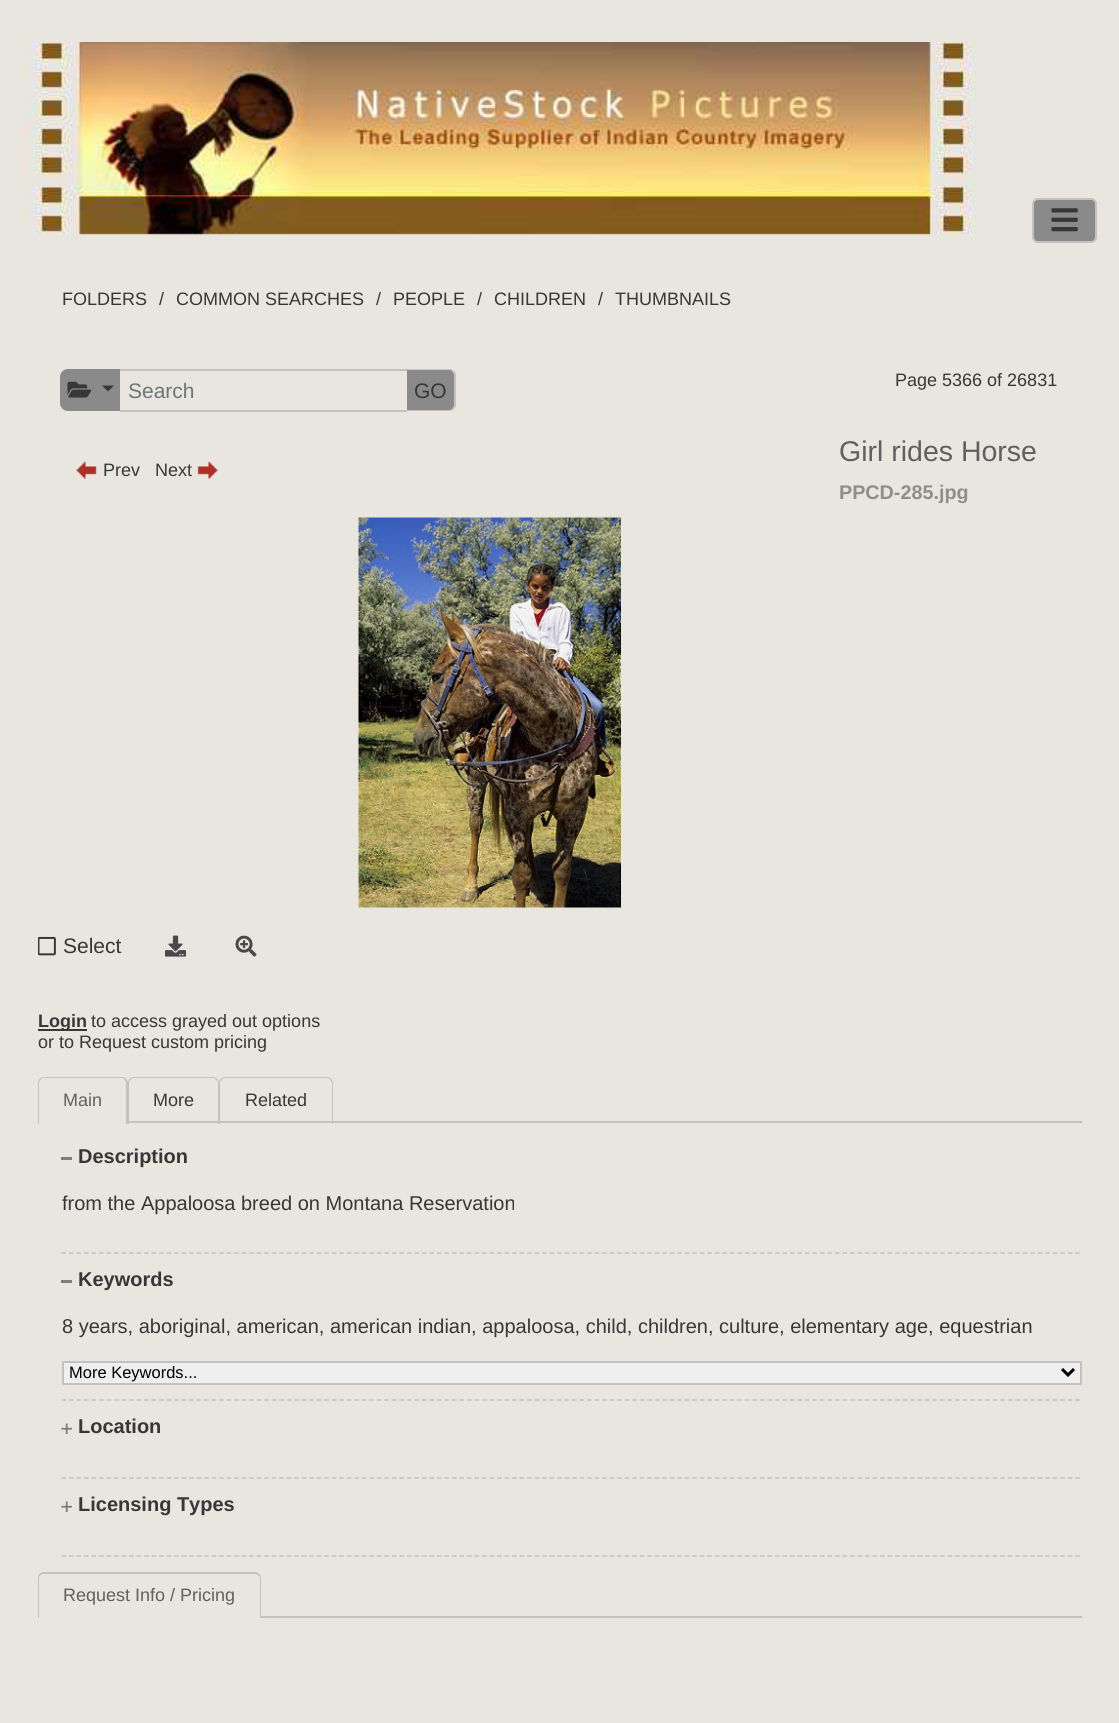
import math
import cairo

surface = cairo.ImageSurface(cairo.FORMAT_RGB24, 1119, 1723)
ctx = cairo.Context(surface)
options = cairo.FontOptions()
options.set_hint_metrics(cairo.HINT_METRICS_OFF)
options.set_hint_style(cairo.HINT_STYLE_NONE)
ctx.set_font_options(options)
ctx.set_miter_limit(4)


def round_rect(x, y, w, h, r):
    ctx.new_sub_path()
    for i, (u, v) in enumerate([(x + w - r, y + h - r), (x + r, y + h - r), (x + r, y + r), (x + w - r, y + r)]):
        ctx.arc(u, v, r, i * math.pi / 2, (i + 1) * math.pi / 2)
    ctx.close_path()


def picture(path, x, y, w, h):
    ctx.save()
    ctx.set_source_surface(cairo.ImageSurface.create_from_png(path), x, y)
    ctx.rectangle(x, y, w, h)
    ctx.fill()
    ctx.restore()


ctx.set_source_rgb(0.914, 0.902, 0.875)
ctx.paint()
picture("img1.png", 24, 42, 953, 193)
ctx.set_source_rgb(0.545, 0.541, 0.541)
round_rect(1033, 199, 63, 43, 5)
ctx.fill_preserve()
ctx.set_source_rgb(0.765, 0.761, 0.753)
ctx.stroke()
picture("img2.png", 1051, 208, 27, 24)
ctx.select_font_face("Liberation Sans")
ctx.set_font_size(18)
ctx.set_source_rgb(0.216, 0.216, 0.216)
ctx.move_to(62, 305)
ctx.show_text("FOLDERS")
ctx.move_to(159, 305)
ctx.show_text("/")
ctx.move_to(176, 305)
ctx.show_text("COMMON SEARCHES")
ctx.move_to(376, 305)
ctx.show_text("/")
ctx.move_to(393, 305)
ctx.show_text("PEOPLE")
ctx.move_to(477, 305)
ctx.show_text("/")
ctx.move_to(494, 305)
ctx.show_text("CHILDREN")
ctx.move_to(598, 305)
ctx.show_text("/")
ctx.move_to(615, 305)
ctx.show_text("THUMBNAILS")
ctx.set_source_rgb(0.545, 0.541, 0.541)
ctx.new_path()
ctx.move_to(68, 369)
ctx.line_to(122, 369)
ctx.line_to(122, 411)
ctx.line_to(68, 411)
ctx.curve_to(63.5, 411, 60, 407.5, 60, 403)
ctx.line_to(60, 377)
ctx.curve_to(60, 372.5, 63.5, 369, 68, 369)
ctx.close_path()
ctx.fill()
picture("img3.png", 67, 381, 25, 17)
ctx.set_source_rgb(0.216, 0.216, 0.216)
ctx.new_path()
ctx.move_to(102, 385.5)
ctx.line_to(114, 385.5)
ctx.line_to(108, 391.5)
ctx.close_path()
ctx.fill()
ctx.set_source_rgb(0.914, 0.902, 0.875)
ctx.rectangle(120, 371, 2, 39)
ctx.fill()
ctx.set_source_rgb(0.545, 0.541, 0.541)
ctx.new_path()
ctx.move_to(407, 369)
ctx.line_to(448, 369)
ctx.curve_to(452.5, 369, 456, 372.5, 456, 377)
ctx.line_to(456, 403)
ctx.curve_to(456, 407.5, 452.5, 411, 448, 411)
ctx.line_to(407, 411)
ctx.close_path()
ctx.fill()
ctx.set_source_rgb(0.765, 0.761, 0.753)
ctx.set_fill_rule(cairo.FILL_RULE_EVEN_ODD)
ctx.new_path()
ctx.move_to(406, 369)
ctx.line_to(449, 369)
ctx.curve_to(453, 369, 456, 372, 456, 376)
ctx.line_to(456, 404)
ctx.curve_to(456, 408, 453, 411, 449, 411)
ctx.line_to(406, 411)
ctx.close_path()
ctx.move_to(406, 370)
ctx.line_to(449, 370)
ctx.curve_to(452, 370, 454, 373, 454, 376)
ctx.line_to(454, 404)
ctx.curve_to(454, 407, 452, 410, 449, 410)
ctx.line_to(406, 410)
ctx.close_path()
ctx.fill()
ctx.rectangle(120, 369, 287, 2)
ctx.fill()
ctx.rectangle(120, 410, 287, 2)
ctx.fill()
ctx.set_font_size(21)
ctx.set_source_rgb(0.424, 0.459, 0.49)
ctx.move_to(128, 398)
ctx.show_text("Search")
ctx.set_source_rgb(0.216, 0.216, 0.216)
ctx.move_to(414, 398)
ctx.show_text("GO")
ctx.set_font_size(18)
ctx.move_to(895, 386)
ctx.show_text("Page 5366 of 26831")
picture("img4.png", 76, 461, 21, 18)
ctx.move_to(103, 476)
ctx.show_text("Prev")
ctx.move_to(155, 476)
ctx.show_text("Next")
picture("img5.png", 197, 461, 21, 18)
ctx.set_font_size(28.5)
ctx.set_source_rgb(0.376, 0.376, 0.376)
ctx.move_to(839, 461)
ctx.show_text("Girl rides Horse")
ctx.select_font_face("Liberation Sans", cairo.FONT_SLANT_NORMAL, cairo.FONT_WEIGHT_BOLD)
ctx.set_font_size(19.75)
ctx.set_source_rgb(0.561, 0.557, 0.553)
ctx.move_to(839, 499)
ctx.show_text("PPCD-285.jpg")
picture("img6.png", 358, 517, 263, 391)
picture("img7.png", 38, 936, 18, 20)
ctx.select_font_face("Liberation Sans")
ctx.set_font_size(21)
ctx.set_source_rgb(0.216, 0.216, 0.216)
ctx.move_to(63, 953)
ctx.show_text("Select")
picture("img8.png", 165, 935, 21, 22)
picture("img9.png", 235, 935, 22, 22)
ctx.rectangle(38, 1029, 49, 2)
ctx.fill()
ctx.select_font_face("Liberation Sans", cairo.FONT_SLANT_NORMAL, cairo.FONT_WEIGHT_BOLD)
ctx.set_font_size(18)
ctx.move_to(38, 1027)
ctx.show_text("Login")
ctx.select_font_face("Liberation Sans")
ctx.move_to(91, 1027)
ctx.show_text("to access grayed out options")
ctx.move_to(38, 1048)
ctx.show_text("or to Request custom pricing")
ctx.set_source_rgb(0.765, 0.761, 0.753)
ctx.rectangle(129, 1121, 953, 2)
ctx.fill()
ctx.new_path()
ctx.move_to(44, 1077)
ctx.line_to(122, 1077)
ctx.curve_to(125, 1077, 128, 1080, 128, 1083)
ctx.line_to(128, 1124)
ctx.line_to(38, 1124)
ctx.line_to(38, 1083)
ctx.curve_to(38, 1080, 40, 1077, 44, 1077)
ctx.close_path()
ctx.move_to(44, 1078)
ctx.line_to(122, 1078)
ctx.curve_to(124, 1078, 126, 1081, 126, 1083)
ctx.line_to(126, 1124)
ctx.line_to(39, 1124)
ctx.line_to(39, 1083)
ctx.curve_to(39, 1081, 41, 1078, 44, 1078)
ctx.close_path()
ctx.fill()
ctx.set_source_rgb(0.376, 0.376, 0.376)
ctx.move_to(63, 1106)
ctx.show_text("Main")
ctx.set_source_rgb(0.765, 0.761, 0.753)
ctx.new_path()
ctx.move_to(134, 1077)
ctx.line_to(213, 1077)
ctx.curve_to(216, 1077, 219, 1080, 219, 1083)
ctx.line_to(219, 1124)
ctx.line_to(128, 1124)
ctx.line_to(128, 1083)
ctx.curve_to(128, 1080, 130, 1077, 134, 1077)
ctx.close_path()
ctx.move_to(134, 1078)
ctx.line_to(213, 1078)
ctx.curve_to(215, 1078, 218, 1081, 218, 1083)
ctx.line_to(218, 1124)
ctx.line_to(129, 1124)
ctx.line_to(129, 1083)
ctx.curve_to(129, 1081, 131, 1078, 134, 1078)
ctx.close_path()
ctx.fill()
ctx.set_source_rgb(0.216, 0.216, 0.216)
ctx.move_to(153, 1106)
ctx.show_text("More")
ctx.set_source_rgb(0.765, 0.761, 0.753)
ctx.new_path()
ctx.move_to(225, 1077)
ctx.line_to(327, 1077)
ctx.curve_to(330, 1077, 333, 1080, 333, 1083)
ctx.line_to(333, 1124)
ctx.line_to(219, 1124)
ctx.line_to(219, 1083)
ctx.curve_to(219, 1080, 222, 1077, 225, 1077)
ctx.close_path()
ctx.move_to(225, 1078)
ctx.line_to(327, 1078)
ctx.curve_to(329, 1078, 332, 1081, 332, 1083)
ctx.line_to(332, 1124)
ctx.line_to(220, 1124)
ctx.line_to(220, 1083)
ctx.curve_to(220, 1081, 223, 1078, 225, 1078)
ctx.close_path()
ctx.fill()
ctx.set_source_rgb(0.216, 0.216, 0.216)
ctx.move_to(245, 1106)
ctx.show_text("Related")
ctx.new_path()
ctx.move_to(61.5, 1253)
ctx.line_to(1081.5, 1253)
ctx.set_source_rgb(0.765, 0.761, 0.753)
ctx.set_line_width(1.5)
ctx.set_dash([4.5, 3.01])
ctx.stroke()
ctx.select_font_face("Liberation Sans", cairo.FONT_SLANT_NORMAL, cairo.FONT_WEIGHT_BOLD)
ctx.set_font_size(20)
ctx.set_source_rgb(0.216, 0.216, 0.216)
ctx.move_to(78, 1163)
ctx.show_text("Description")
ctx.set_source_rgb(0.494, 0.494, 0.486)
ctx.rectangle(61, 1157, 11, 3)
ctx.fill()
ctx.select_font_face("Liberation Sans")
ctx.set_source_rgb(0.216, 0.216, 0.216)
ctx.move_to(62, 1210)
ctx.show_text("from the Appaloosa breed on Montana Reservation")
ctx.new_path()
ctx.move_to(61.5, 1400)
ctx.line_to(1081.5, 1400)
ctx.set_source_rgb(0.765, 0.761, 0.753)
ctx.stroke()
ctx.select_font_face("Liberation Sans", cairo.FONT_SLANT_NORMAL, cairo.FONT_WEIGHT_BOLD)
ctx.set_source_rgb(0.216, 0.216, 0.216)
ctx.move_to(78, 1286)
ctx.show_text("Keywords")
ctx.set_source_rgb(0.494, 0.494, 0.486)
ctx.rectangle(61, 1280, 11, 3)
ctx.fill()
ctx.select_font_face("Liberation Sans")
ctx.set_source_rgb(0.216, 0.216, 0.216)
ctx.move_to(62, 1333)
ctx.show_text("8 years, aboriginal, american, american indian, appaloosa, child, children, culture, elementary age, equestrian")
ctx.set_source_rgb(0.937, 0.937, 0.937)
ctx.rectangle(63, 1362, 1018, 22)
ctx.fill_preserve()
ctx.set_source_rgb(0.765, 0.761, 0.753)
ctx.set_line_width(2)
ctx.set_dash([])
ctx.stroke()
ctx.new_path()
ctx.move_to(1062, 1369)
ctx.line_to(1068, 1375)
ctx.line_to(1074, 1369)
ctx.set_source_rgb(0, 0, 0)
ctx.set_line_width(3)
ctx.stroke()
ctx.set_font_size(16.5)
ctx.move_to(69, 1378)
ctx.show_text("More Keywords...")
ctx.new_path()
ctx.move_to(61.5, 1478)
ctx.line_to(1081.5, 1478)
ctx.set_source_rgb(0.765, 0.761, 0.753)
ctx.set_line_width(1.5)
ctx.set_dash([4.5, 3.01])
ctx.stroke()
picture("img10.png", 61, 1423, 11, 11)
ctx.select_font_face("Liberation Sans", cairo.FONT_SLANT_NORMAL, cairo.FONT_WEIGHT_BOLD)
ctx.set_font_size(20)
ctx.set_source_rgb(0.216, 0.216, 0.216)
ctx.move_to(78, 1433)
ctx.show_text("Location")
ctx.new_path()
ctx.move_to(61.5, 1556)
ctx.line_to(1081.5, 1556)
ctx.set_source_rgb(0.765, 0.761, 0.753)
ctx.stroke()
picture("img10.png", 61, 1501, 11, 11)
ctx.set_source_rgb(0.216, 0.216, 0.216)
ctx.move_to(78, 1511)
ctx.show_text("Licensing Types")
ctx.set_source_rgb(0.765, 0.761, 0.753)
ctx.rectangle(261, 1616, 821, 2)
ctx.fill()
ctx.new_path()
ctx.move_to(44, 1572)
ctx.line_to(255, 1572)
ctx.curve_to(258, 1572, 261, 1575, 261, 1578)
ctx.line_to(261, 1618)
ctx.line_to(38, 1618)
ctx.line_to(38, 1578)
ctx.curve_to(38, 1575, 40, 1572, 44, 1572)
ctx.close_path()
ctx.move_to(44, 1574)
ctx.line_to(255, 1574)
ctx.curve_to(257, 1574, 260, 1576, 260, 1578)
ctx.line_to(260, 1618)
ctx.line_to(39, 1618)
ctx.line_to(39, 1578)
ctx.curve_to(39, 1576, 41, 1574, 44, 1574)
ctx.close_path()
ctx.fill()
ctx.select_font_face("Liberation Sans")
ctx.set_font_size(18)
ctx.set_source_rgb(0.376, 0.376, 0.376)
ctx.move_to(63, 1601)
ctx.show_text("Request Info / Pricing")
surface.write_to_png("page.png")
